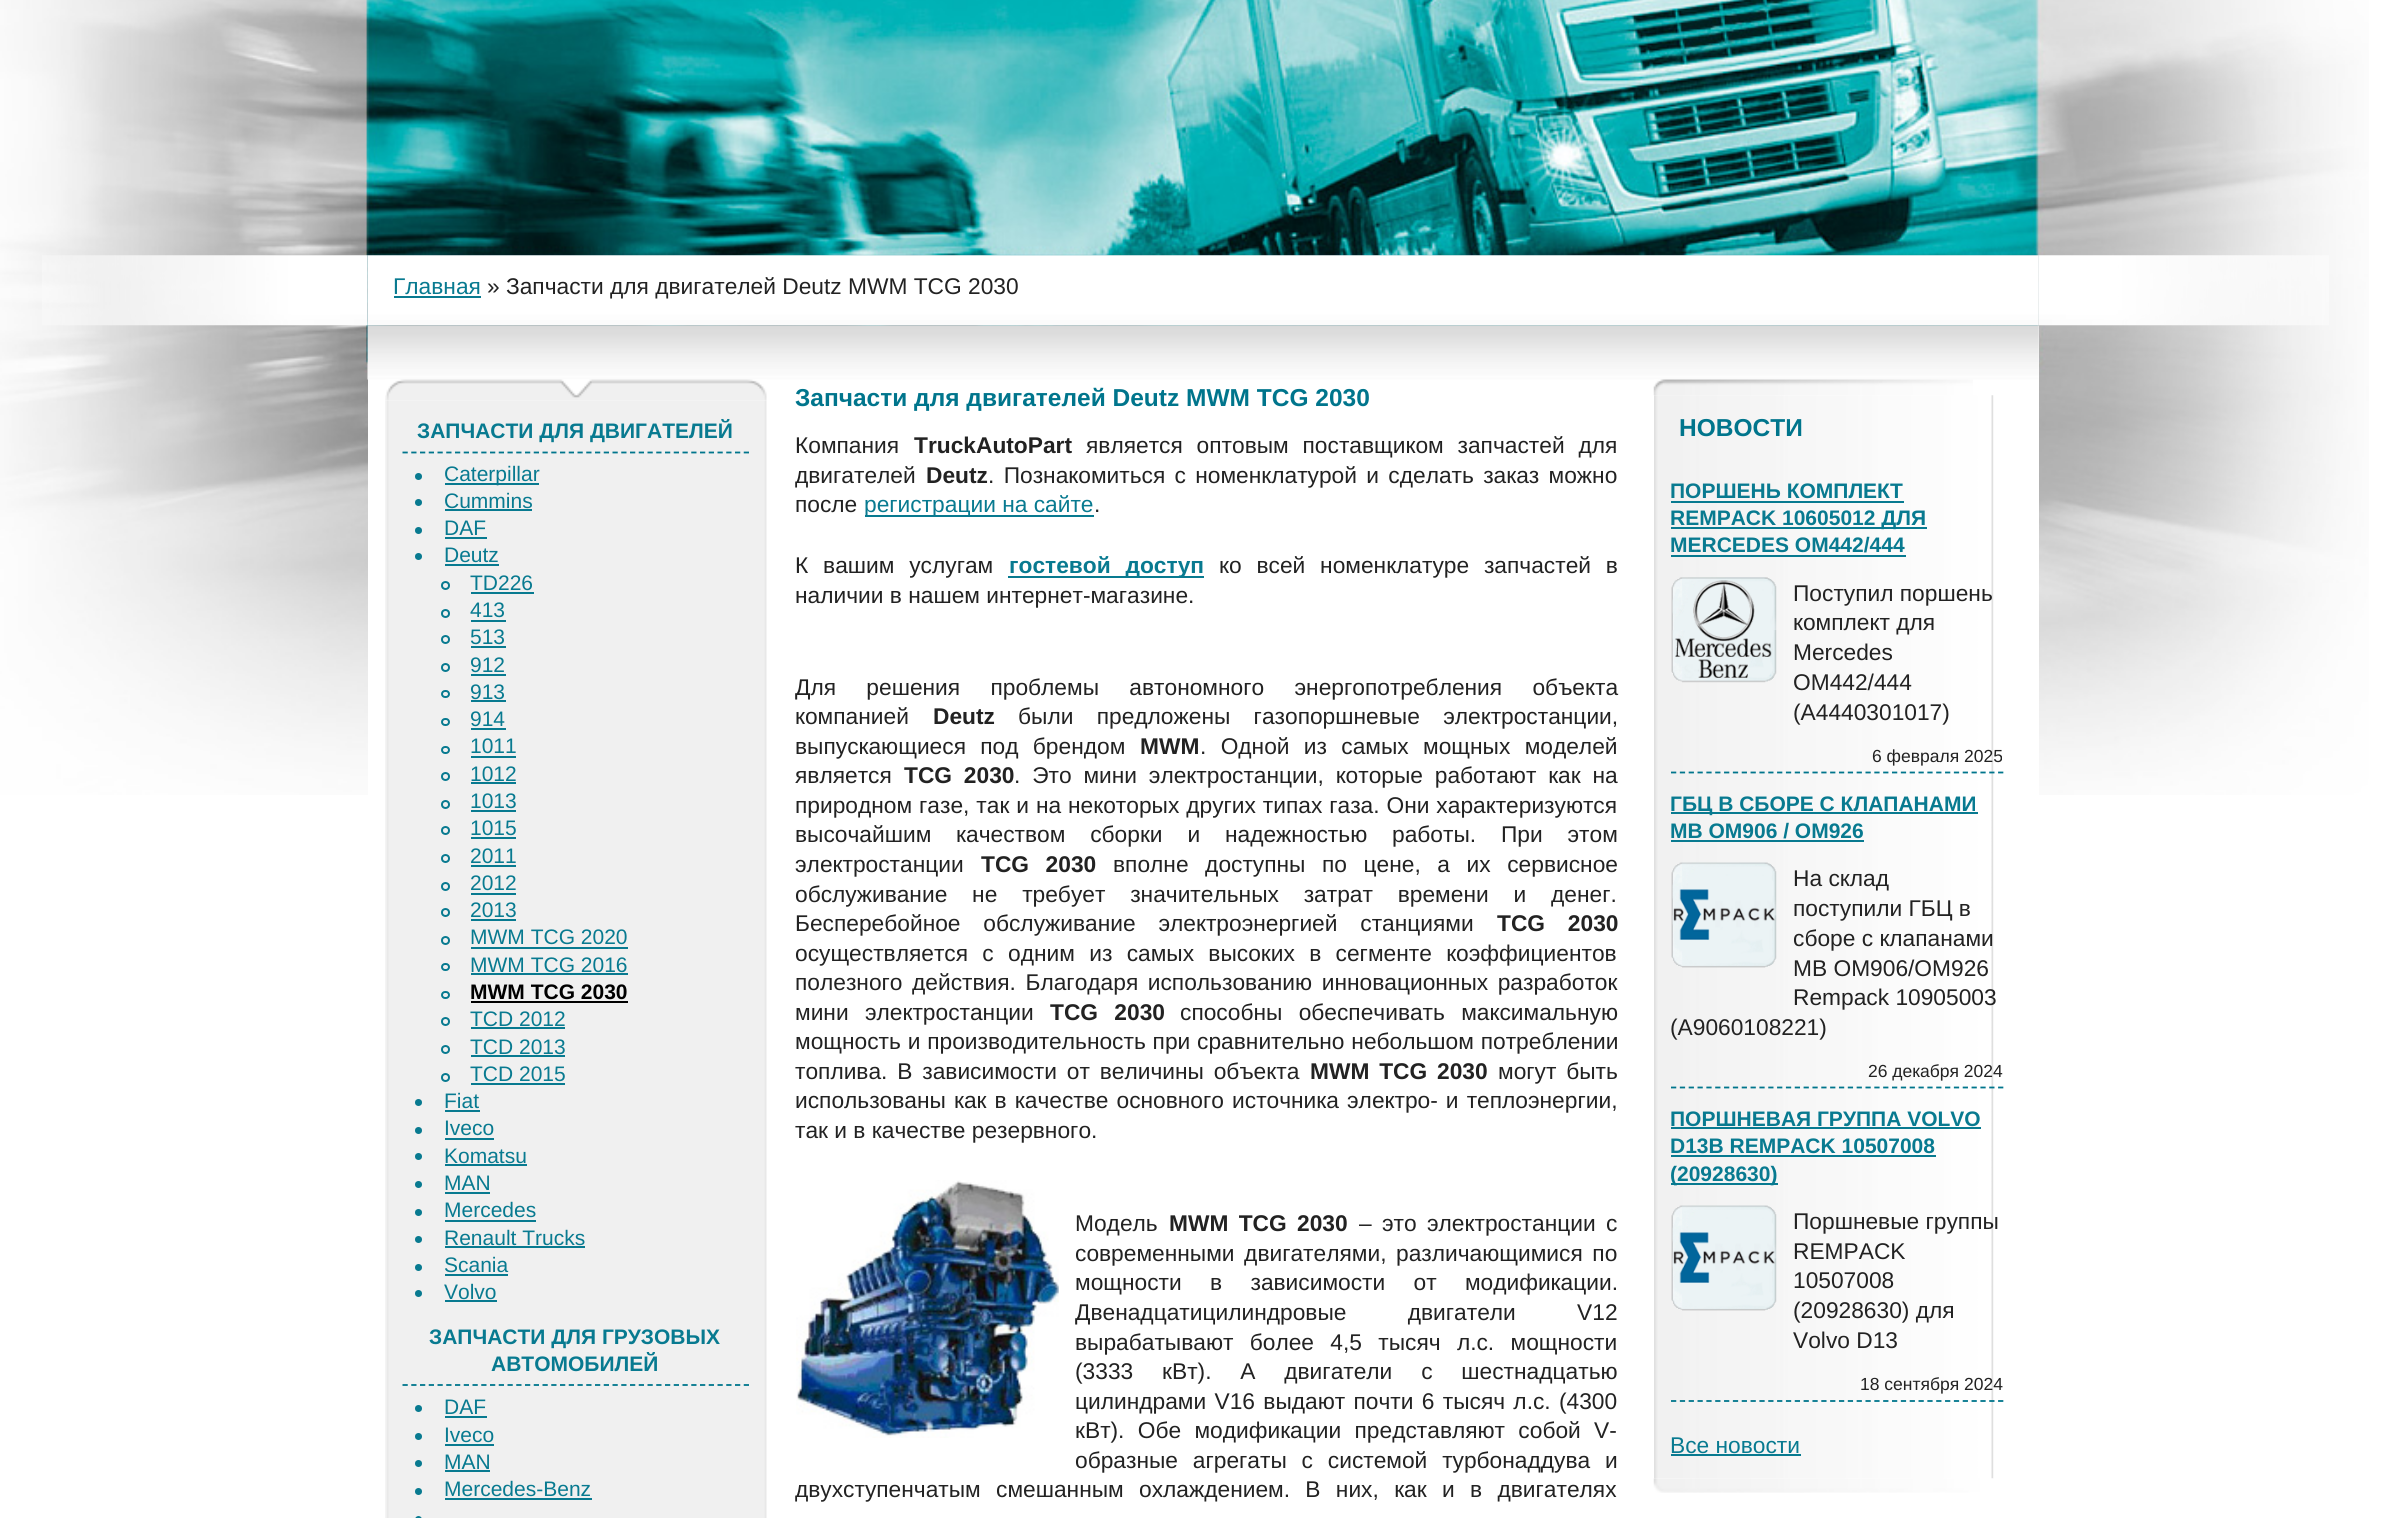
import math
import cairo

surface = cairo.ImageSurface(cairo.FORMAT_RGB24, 2403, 1518)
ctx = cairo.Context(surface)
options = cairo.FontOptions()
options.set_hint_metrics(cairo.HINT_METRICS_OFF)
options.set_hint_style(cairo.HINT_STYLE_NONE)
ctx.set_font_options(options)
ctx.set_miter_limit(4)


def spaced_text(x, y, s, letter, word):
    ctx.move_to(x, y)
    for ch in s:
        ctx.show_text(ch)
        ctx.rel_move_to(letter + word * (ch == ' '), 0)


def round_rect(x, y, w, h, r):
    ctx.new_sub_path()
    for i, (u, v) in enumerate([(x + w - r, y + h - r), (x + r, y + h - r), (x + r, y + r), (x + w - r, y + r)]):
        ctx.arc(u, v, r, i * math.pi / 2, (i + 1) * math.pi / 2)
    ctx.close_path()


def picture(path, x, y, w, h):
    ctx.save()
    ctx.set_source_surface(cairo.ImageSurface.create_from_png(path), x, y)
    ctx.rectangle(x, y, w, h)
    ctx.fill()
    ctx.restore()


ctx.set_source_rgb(1, 1, 1)
ctx.paint()
picture("img1.png", 0, 0, 2369, 795)
ctx.set_source_rgb(1, 1, 1)
ctx.rectangle(368, 326, 1671, 469)
ctx.fill()
picture("img5.png", 367, 325, 1672, 55)
picture("img2.png", 42, 255, 326, 71)
picture("img3.png", 367, 255, 1672, 71)
ctx.select_font_face("Liberation Sans")
ctx.set_font_size(22.75)
ctx.set_source_rgb(0.035, 0.478, 0.565)
ctx.move_to(393, 294)
ctx.show_text("Главная")
ctx.rectangle(394, 296, 87, 2)
ctx.fill()
ctx.set_source_rgb(0.133, 0.133, 0.133)
ctx.move_to(487, 294)
ctx.show_text("» Запчасти для двигателей Deutz MWM TCG 2030")
picture("img4.png", 2038, 255, 291, 71)
picture("img6.png", 385, 379, 382, 22)
picture("img7.png", 385, 400, 382, 1118)
ctx.new_path()
ctx.move_to(402.5, 452.5)
ctx.line_to(749, 452.5)
ctx.set_source_rgb(0, 0.459, 0.549)
ctx.set_line_width(1.8)
ctx.set_dash([5.25, 3.5])
ctx.stroke()
ctx.select_font_face("Liberation Sans", cairo.FONT_SLANT_NORMAL, cairo.FONT_WEIGHT_BOLD)
ctx.set_font_size(21)
ctx.set_source_rgb(0.035, 0.478, 0.565)
ctx.move_to(417, 438)
ctx.show_text("ЗАПЧАСТИ ДЛЯ ДВИГАТЕЛЕЙ")
ctx.new_path()
ctx.arc(418.5, 476.5, 3.5, 0, 2 * math.pi)
ctx.fill()
ctx.rectangle(445, 483, 94, 2)
ctx.fill()
ctx.select_font_face("Liberation Sans")
ctx.move_to(444, 481)
ctx.show_text("Caterpillar")
ctx.new_path()
ctx.arc(418.5, 502.5, 3.5, 0, 2 * math.pi)
ctx.fill()
ctx.move_to(444, 508)
ctx.show_text("Cummins")
ctx.rectangle(445, 509, 87, 2)
ctx.fill()
ctx.arc(418.5, 530.5, 3.5, 0, 2 * math.pi)
ctx.fill()
ctx.move_to(444, 535)
ctx.show_text("DAF")
ctx.rectangle(445, 537, 42, 2)
ctx.fill()
ctx.arc(418.5, 556.5, 3.5, 0, 2 * math.pi)
ctx.fill()
ctx.move_to(444, 562)
ctx.show_text("Deutz")
ctx.rectangle(445, 564, 54, 2)
ctx.fill()
ctx.arc(445.5, 585.5, 3.5, 0, 2 * math.pi)
ctx.set_line_width(2)
ctx.set_dash([])
ctx.stroke()
ctx.move_to(470, 590)
ctx.show_text("TD226")
ctx.rectangle(471, 592, 63, 2)
ctx.fill()
ctx.arc(445.5, 613.5, 3.5, 0, 2 * math.pi)
ctx.stroke()
ctx.move_to(470, 617)
ctx.show_text("413")
ctx.rectangle(471, 620, 35, 2)
ctx.fill()
ctx.arc(445.5, 639.5, 3.5, 0, 2 * math.pi)
ctx.stroke()
ctx.move_to(470, 644)
ctx.show_text("513")
ctx.rectangle(471, 646, 35, 2)
ctx.fill()
ctx.arc(445.5, 667.5, 3.5, 0, 2 * math.pi)
ctx.stroke()
ctx.move_to(470, 672)
ctx.show_text("912")
ctx.rectangle(471, 674, 35, 2)
ctx.fill()
round_rect(442, 691, 7, 6, 3)
ctx.stroke()
ctx.move_to(470, 699)
ctx.show_text("913")
ctx.rectangle(471, 700, 35, 2)
ctx.fill()
round_rect(442, 719, 7, 6, 3)
ctx.stroke()
ctx.move_to(470, 726)
ctx.show_text("914")
ctx.rectangle(471, 728, 35, 2)
ctx.fill()
round_rect(442, 747, 7, 6, 3)
ctx.stroke()
ctx.move_to(470, 753)
ctx.show_text("1011")
ctx.rectangle(471, 756, 45, 2)
ctx.fill()
ctx.arc(445.5, 776.5, 3.5, 0, 2 * math.pi)
ctx.stroke()
ctx.move_to(470, 781)
ctx.show_text("1012")
ctx.rectangle(471, 782, 45, 2)
ctx.fill()
ctx.arc(445.5, 804.5, 3.5, 0, 2 * math.pi)
ctx.stroke()
ctx.move_to(470, 808)
ctx.show_text("1013")
ctx.rectangle(471, 810, 45, 2)
ctx.fill()
ctx.arc(445.5, 830.5, 3.5, 0, 2 * math.pi)
ctx.stroke()
ctx.move_to(470, 835)
ctx.show_text("1015")
ctx.rectangle(471, 837, 45, 2)
ctx.fill()
ctx.arc(445.5, 858.5, 3.5, 0, 2 * math.pi)
ctx.stroke()
ctx.move_to(470, 863)
ctx.show_text("2011")
ctx.rectangle(471, 865, 45, 2)
ctx.fill()
ctx.arc(445.5, 886.5, 3.5, 0, 2 * math.pi)
ctx.stroke()
ctx.move_to(470, 890)
ctx.show_text("2012")
ctx.rectangle(471, 893, 45, 2)
ctx.fill()
ctx.arc(445.5, 912.5, 3.5, 0, 2 * math.pi)
ctx.stroke()
ctx.move_to(470, 917)
ctx.show_text("2013")
ctx.rectangle(471, 919, 45, 2)
ctx.fill()
ctx.arc(445.5, 940.5, 3.5, 0, 2 * math.pi)
ctx.stroke()
ctx.move_to(470, 944)
ctx.show_text("MWM TCG 2020")
ctx.rectangle(471, 947, 157, 2)
ctx.fill()
round_rect(442, 964, 7, 6, 3)
ctx.stroke()
ctx.move_to(470, 972)
ctx.show_text("MWM TCG 2016")
ctx.rectangle(471, 973, 157, 2)
ctx.fill()
round_rect(442, 992, 7, 6, 3)
ctx.stroke()
ctx.select_font_face("Liberation Sans", cairo.FONT_SLANT_NORMAL, cairo.FONT_WEIGHT_BOLD)
ctx.set_source_rgb(0, 0, 0)
ctx.move_to(470, 999)
ctx.show_text("MWM TCG 2030")
ctx.rectangle(471, 1001, 157, 2)
ctx.fill()
ctx.arc(445.5, 1021.5, 3.5, 0, 2 * math.pi)
ctx.set_source_rgb(0.035, 0.478, 0.565)
ctx.stroke()
ctx.select_font_face("Liberation Sans")
ctx.move_to(470, 1026)
ctx.show_text("TCD 2012")
ctx.rectangle(471, 1027, 94, 2)
ctx.fill()
ctx.arc(445.5, 1049.5, 3.5, 0, 2 * math.pi)
ctx.stroke()
ctx.move_to(470, 1054)
ctx.show_text("TCD 2013")
ctx.rectangle(471, 1055, 94, 2)
ctx.fill()
ctx.arc(445.5, 1077.5, 3.5, 0, 2 * math.pi)
ctx.stroke()
ctx.move_to(470, 1081)
ctx.show_text("TCD 2015")
ctx.rectangle(471, 1083, 94, 2)
ctx.fill()
ctx.arc(418.5, 1102.5, 3.5, 0, 2 * math.pi)
ctx.fill()
ctx.move_to(444, 1108)
ctx.show_text("Fiat")
ctx.rectangle(445, 1110, 35, 2)
ctx.fill()
ctx.arc(418.5, 1130.5, 3.5, 0, 2 * math.pi)
ctx.fill()
ctx.move_to(444, 1135)
ctx.show_text("Iveco")
ctx.rectangle(445, 1138, 49, 2)
ctx.fill()
ctx.arc(418.5, 1156.5, 3.5, 0, 2 * math.pi)
ctx.fill()
ctx.move_to(444, 1163)
ctx.show_text("Komatsu")
ctx.rectangle(445, 1164, 82, 2)
ctx.fill()
ctx.arc(418.5, 1184.5, 3.5, 0, 2 * math.pi)
ctx.fill()
ctx.move_to(444, 1190)
ctx.show_text("MAN")
ctx.rectangle(445, 1192, 45, 2)
ctx.fill()
ctx.arc(418.5, 1212.5, 3.5, 0, 2 * math.pi)
ctx.fill()
ctx.move_to(444, 1217)
ctx.show_text("Mercedes")
ctx.rectangle(445, 1220, 91, 2)
ctx.fill()
ctx.arc(418.5, 1239.5, 3.5, 0, 2 * math.pi)
ctx.fill()
ctx.move_to(444, 1245)
ctx.show_text("Renault Trucks")
ctx.rectangle(445, 1246, 140, 2)
ctx.fill()
ctx.arc(418.5, 1267.5, 3.5, 0, 2 * math.pi)
ctx.fill()
ctx.move_to(444, 1272)
ctx.show_text("Scania")
ctx.rectangle(445, 1274, 63, 2)
ctx.fill()
ctx.arc(418.5, 1293.5, 3.5, 0, 2 * math.pi)
ctx.fill()
ctx.move_to(444, 1299)
ctx.show_text("Volvo")
ctx.rectangle(445, 1300, 52, 2)
ctx.fill()
ctx.new_path()
ctx.move_to(402.5, 1385)
ctx.line_to(749, 1385)
ctx.set_source_rgb(0, 0.459, 0.549)
ctx.set_line_width(1.8)
ctx.set_dash([5.25, 3.5])
ctx.stroke()
ctx.select_font_face("Liberation Sans", cairo.FONT_SLANT_NORMAL, cairo.FONT_WEIGHT_BOLD)
ctx.set_source_rgb(0.035, 0.478, 0.565)
ctx.move_to(429, 1344)
ctx.show_text("ЗАПЧАСТИ ДЛЯ ГРУЗОВЫХ")
ctx.move_to(491, 1371)
ctx.show_text("АВТОМОБИЛЕЙ")
ctx.new_path()
ctx.arc(418.5, 1408.5, 3.5, 0, 2 * math.pi)
ctx.fill()
ctx.select_font_face("Liberation Sans")
ctx.move_to(444, 1414)
ctx.show_text("DAF")
ctx.rectangle(445, 1416, 42, 2)
ctx.fill()
ctx.arc(418.5, 1436.5, 3.5, 0, 2 * math.pi)
ctx.fill()
ctx.move_to(444, 1442)
ctx.show_text("Iveco")
ctx.rectangle(445, 1444, 49, 2)
ctx.fill()
ctx.arc(418.5, 1463.5, 3.5, 0, 2 * math.pi)
ctx.fill()
ctx.move_to(444, 1469)
ctx.show_text("MAN")
ctx.rectangle(445, 1470, 45, 2)
ctx.fill()
ctx.arc(418.5, 1491.5, 3.5, 0, 2 * math.pi)
ctx.fill()
ctx.move_to(444, 1496)
ctx.show_text("Mercedes-Benz")
ctx.rectangle(445, 1498, 147, 2)
ctx.fill()
round_rect(415, 1516, 7, 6, 3.5)
ctx.fill()
ctx.select_font_face("Liberation Sans", cairo.FONT_SLANT_NORMAL, cairo.FONT_WEIGHT_BOLD)
ctx.set_font_size(24.5)
ctx.set_source_rgb(0, 0.459, 0.549)
ctx.move_to(795, 406)
ctx.show_text("Запчасти для двигателей Deutz MWM TCG 2030")
ctx.select_font_face("Liberation Sans")
ctx.set_font_size(22.75)
ctx.set_source_rgb(0.133, 0.133, 0.133)
ctx.move_to(795, 453)
ctx.show_text("Компания")
ctx.select_font_face("Liberation Sans", cairo.FONT_SLANT_NORMAL, cairo.FONT_WEIGHT_BOLD)
ctx.move_to(914, 453)
ctx.show_text("TruckAutoPart")
ctx.select_font_face("Liberation Sans")
spaced_text(1086, 453, "является оптовым поставщиком запчастей для", 0, 7.5)
ctx.move_to(795, 483)
ctx.show_text("двигателей")
ctx.select_font_face("Liberation Sans", cairo.FONT_SLANT_NORMAL, cairo.FONT_WEIGHT_BOLD)
ctx.move_to(926, 483)
ctx.show_text("Deutz")
ctx.select_font_face("Liberation Sans")
spaced_text(988, 483, ". Познакомиться с номенклатурой и сделать заказ можно", 0, 3)
ctx.move_to(795, 512)
ctx.show_text("после")
ctx.set_source_rgb(0.035, 0.478, 0.565)
ctx.rectangle(865, 515, 229, 2)
ctx.fill()
ctx.move_to(864, 512)
ctx.show_text("регистрации на сайте")
ctx.set_source_rgb(0.133, 0.133, 0.133)
ctx.move_to(1094, 512)
ctx.show_text(".")
spaced_text(795, 573, "К вашим услугам", 0, 8.5)
ctx.set_source_rgb(0.035, 0.478, 0.565)
ctx.rectangle(1008, 576, 196, 2)
ctx.fill()
ctx.select_font_face("Liberation Sans", cairo.FONT_SLANT_NORMAL, cairo.FONT_WEIGHT_BOLD)
spaced_text(1009, 573, "гостевой доступ", 0, 8.5)
ctx.select_font_face("Liberation Sans")
ctx.set_source_rgb(0.133, 0.133, 0.133)
spaced_text(1219, 573, "ко всей номенклатуре запчастей в", 0, 8.5)
ctx.move_to(795, 603)
ctx.show_text("наличии в нашем интернет-магазине.")
spaced_text(795, 695, "Для решения проблемы автономного энергопотребления объекта", 0, 24)
ctx.move_to(795, 724)
ctx.show_text("компанией")
ctx.select_font_face("Liberation Sans", cairo.FONT_SLANT_NORMAL, cairo.FONT_WEIGHT_BOLD)
ctx.move_to(933, 724)
ctx.show_text("Deutz")
ctx.select_font_face("Liberation Sans")
spaced_text(1018, 724, "были предложены газопоршневые электростанции,", 0, 17)
spaced_text(795, 754, "выпускающиеся под брендом", 0, 8)
ctx.select_font_face("Liberation Sans", cairo.FONT_SLANT_NORMAL, cairo.FONT_WEIGHT_BOLD)
ctx.move_to(1140, 754)
ctx.show_text("MWM")
ctx.select_font_face("Liberation Sans")
spaced_text(1200, 754, ". Одной из самых мощных моделей", 0, 8)
ctx.move_to(795, 783)
ctx.show_text("является")
ctx.select_font_face("Liberation Sans", cairo.FONT_SLANT_NORMAL, cairo.FONT_WEIGHT_BOLD)
spaced_text(904, 783, "TCG 2030", 0, 5.5)
ctx.select_font_face("Liberation Sans")
spaced_text(1014, 783, ". Это мини электростанции, которые работают как на", 0, 5.5)
spaced_text(795, 813, "природном газе, так и на некоторых других типах газа. Они характеризуются", 0, 0.6)
spaced_text(795, 842, "высочайшим качеством сборки и надежностью работы. При этом", 0, 18.5)
ctx.move_to(795, 872)
ctx.show_text("электростанции")
ctx.select_font_face("Liberation Sans", cairo.FONT_SLANT_NORMAL, cairo.FONT_WEIGHT_BOLD)
spaced_text(981, 872, "TCG 2030", 0, 10.25)
ctx.select_font_face("Liberation Sans")
spaced_text(1113, 872, "вполне доступны по цене, а их сервисное", 0, 10.25)
spaced_text(795, 902, "обслуживание не требует значительных затрат времени и денег.", 0, 18.5)
spaced_text(795, 931, "Бесперебойное обслуживание электроэнергией станциями", 0, 16.5)
ctx.select_font_face("Liberation Sans", cairo.FONT_SLANT_NORMAL, cairo.FONT_WEIGHT_BOLD)
spaced_text(1497, 931, "TCG 2030", 0, 16.5)
ctx.select_font_face("Liberation Sans")
spaced_text(795, 961, "осуществляется с одним из самых высоких в сегменте коэффициентов", 0, 8)
spaced_text(795, 990, "полезного действия. Благодаря использованию инновационных разработок", 0, 3.25)
spaced_text(795, 1020, "мини электростанции", 0, 10)
ctx.select_font_face("Liberation Sans", cairo.FONT_SLANT_NORMAL, cairo.FONT_WEIGHT_BOLD)
spaced_text(1050, 1020, "TCG 2030", 0, 10)
ctx.select_font_face("Liberation Sans")
spaced_text(1180, 1020, "способны обеспечивать максимальную", 0, 10)
spaced_text(795, 1049, "мощность и производительность при сравнительно небольшом потреблении", 0, 0.5)
spaced_text(795, 1079, "топлива. В зависимости от величины объекта", 0, 3.5)
ctx.select_font_face("Liberation Sans", cairo.FONT_SLANT_NORMAL, cairo.FONT_WEIGHT_BOLD)
spaced_text(1310, 1079, "MWM TCG 2030", 0, 3.5)
ctx.select_font_face("Liberation Sans")
spaced_text(1498, 1079, "могут быть", 0, 3.5)
spaced_text(795, 1108, "использованы как в качестве основного источника электро- и теплоэнергии,", 0, 1.75)
ctx.move_to(795, 1138)
ctx.show_text("так и в качестве резервного.")
picture("img8.png", 796, 1180, 263, 258)
ctx.move_to(1075, 1231)
ctx.show_text("Модель")
ctx.select_font_face("Liberation Sans", cairo.FONT_SLANT_NORMAL, cairo.FONT_WEIGHT_BOLD)
spaced_text(1169, 1231, "MWM TCG 2030", 0, 4)
ctx.select_font_face("Liberation Sans")
spaced_text(1359, 1231, "– это электростанции с", 0, 4)
spaced_text(1075, 1261, "современными двигателями, различающимися по", 0, 3.25)
spaced_text(1075, 1290, "мощности в зависимости от модификации.", 0, 22)
spaced_text(1075, 1320, "Двенадцатицилиндровые двигатели V12", 0, 55)
spaced_text(1075, 1350, "вырабатывают более 4,5 тысяч л.с. мощности", 0, 10)
spaced_text(1075, 1379, "(3333 кВт). А двигатели с шестнадцатью", 0, 22.5)
spaced_text(1075, 1409, "цилиндрами V16 выдают почти 6 тысяч л.с. (4300", 0, 2)
spaced_text(1075, 1438, "кВт). Обе модификации представляют собой V-", 0, 7)
spaced_text(1075, 1468, "образные агрегаты с системой турбонаддува и", 0, 8.5)
spaced_text(795, 1497, "двухступенчатым смешанным охлаждением. В них, как и в двигателях", 0, 9)
picture("img9.png", 1653, 379, 320, 17)
picture("img10.png", 1654, 395, 340, 1084)
ctx.select_font_face("Liberation Sans", cairo.FONT_SLANT_NORMAL, cairo.FONT_WEIGHT_BOLD)
ctx.set_font_size(24.5)
ctx.set_source_rgb(0, 0.459, 0.549)
ctx.move_to(1679, 436)
ctx.show_text("НОВОСТИ")
ctx.new_path()
ctx.move_to(1671, 772.5)
ctx.line_to(2004, 772.5)
ctx.set_dash([5.25, 3.59])
ctx.stroke()
ctx.set_font_size(21)
ctx.set_source_rgb(0.035, 0.478, 0.565)
ctx.move_to(1670, 498)
ctx.show_text("ПОРШЕНЬ КОМПЛЕКТ")
ctx.rectangle(1671, 501, 233, 2)
ctx.fill()
ctx.rectangle(1671, 527, 256, 2)
ctx.fill()
ctx.move_to(1670, 525)
ctx.show_text("REMPACK 10605012 ДЛЯ")
ctx.move_to(1670, 552)
ctx.show_text("MERCEDES OM442/444")
ctx.rectangle(1671, 555, 235, 2)
ctx.fill()
picture("img11.png", 1671, 577, 106, 106)
ctx.select_font_face("Liberation Sans")
ctx.set_font_size(22.75)
ctx.set_source_rgb(0.133, 0.133, 0.133)
ctx.move_to(1793, 601)
ctx.show_text("Поступил поршень")
ctx.move_to(1793, 630)
ctx.show_text("комплект для")
ctx.move_to(1793, 660)
ctx.show_text("Mercedes")
ctx.move_to(1793, 690)
ctx.show_text("OM442/444")
ctx.move_to(1793, 720)
ctx.show_text("(A4440301017)")
ctx.set_font_size(17.5)
ctx.move_to(1872, 762)
ctx.show_text("6 февраля 2025")
ctx.new_path()
ctx.move_to(1671, 1087.5)
ctx.line_to(2004, 1087.5)
ctx.set_source_rgb(0, 0.459, 0.549)
ctx.stroke()
ctx.set_source_rgb(0.035, 0.478, 0.565)
ctx.rectangle(1671, 812, 307, 2)
ctx.fill()
ctx.select_font_face("Liberation Sans", cairo.FONT_SLANT_NORMAL, cairo.FONT_WEIGHT_BOLD)
ctx.set_font_size(21)
ctx.move_to(1670, 811)
ctx.show_text("ГБЦ В СБОРЕ С КЛАПАНАМИ")
ctx.move_to(1670, 838)
ctx.show_text("MB OM906 / OM926")
ctx.rectangle(1671, 840, 193, 2)
ctx.fill()
picture("img12.png", 1671, 862, 106, 106)
ctx.select_font_face("Liberation Sans")
ctx.set_font_size(22.75)
ctx.set_source_rgb(0.133, 0.133, 0.133)
ctx.move_to(1793, 886)
ctx.show_text("На склад")
ctx.move_to(1793, 916)
ctx.show_text("поступили ГБЦ в")
ctx.move_to(1793, 946)
ctx.show_text("сборе с клапанами")
ctx.move_to(1793, 976)
ctx.show_text("MB OM906/OM926")
ctx.move_to(1793, 1005)
ctx.show_text("Rempack 10905003")
ctx.move_to(1670, 1035)
ctx.show_text("(A9060108221)")
ctx.set_font_size(17.5)
ctx.move_to(1868, 1077)
ctx.show_text("26 декабря 2024")
ctx.new_path()
ctx.move_to(1671, 1401)
ctx.line_to(2004, 1401)
ctx.set_source_rgb(0, 0.459, 0.549)
ctx.stroke()
ctx.select_font_face("Liberation Sans", cairo.FONT_SLANT_NORMAL, cairo.FONT_WEIGHT_BOLD)
ctx.set_font_size(21)
ctx.set_source_rgb(0.035, 0.478, 0.565)
ctx.move_to(1670, 1126)
ctx.show_text("ПОРШНЕВАЯ ГРУППА VOLVO")
ctx.rectangle(1671, 1127, 310, 2)
ctx.fill()
ctx.move_to(1670, 1153)
ctx.show_text("D13B REMPACK 10507008")
ctx.rectangle(1671, 1155, 265, 2)
ctx.fill()
ctx.rectangle(1671, 1183, 107, 2)
ctx.fill()
ctx.move_to(1670, 1181)
ctx.show_text("(20928630)")
picture("img12.png", 1671, 1205, 106, 106)
ctx.select_font_face("Liberation Sans")
ctx.set_font_size(22.75)
ctx.set_source_rgb(0.133, 0.133, 0.133)
ctx.move_to(1793, 1229)
ctx.show_text("Поршневые группы")
ctx.move_to(1793, 1259)
ctx.show_text("REMPACK")
ctx.move_to(1793, 1288)
ctx.show_text("10507008")
ctx.move_to(1793, 1318)
ctx.show_text("(20928630) для")
ctx.move_to(1793, 1348)
ctx.show_text("Volvo D13")
ctx.set_font_size(17.5)
ctx.move_to(1860, 1390)
ctx.show_text("18 сентября 2024")
ctx.set_font_size(22.75)
ctx.set_source_rgb(0.035, 0.478, 0.565)
ctx.move_to(1670, 1453)
ctx.show_text("Все новости")
ctx.rectangle(1671, 1454, 130, 2)
ctx.fill()
picture("img13.png", 1653, 1478, 340, 15)
surface.write_to_png("page.png")
